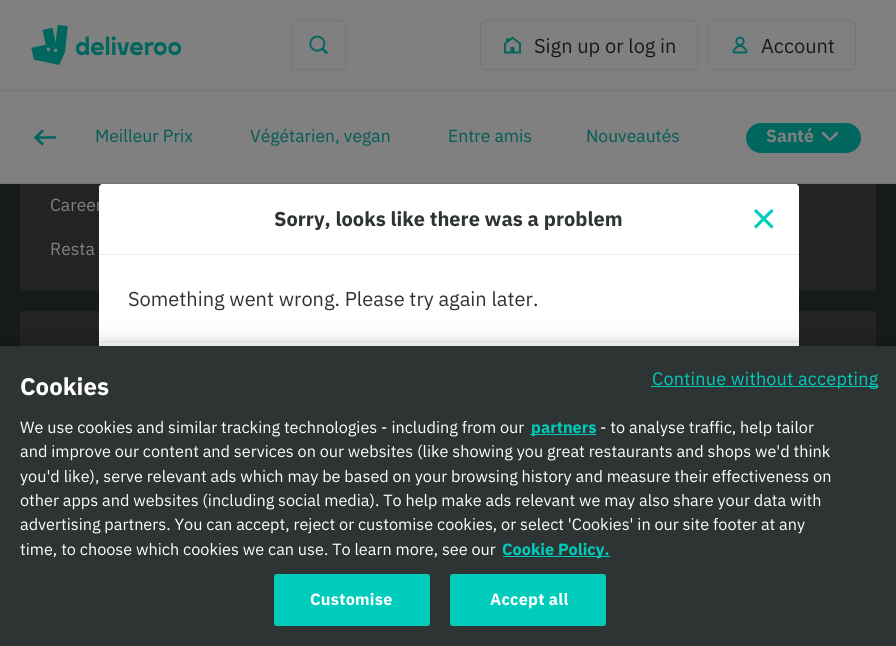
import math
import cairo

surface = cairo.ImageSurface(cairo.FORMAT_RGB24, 896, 646)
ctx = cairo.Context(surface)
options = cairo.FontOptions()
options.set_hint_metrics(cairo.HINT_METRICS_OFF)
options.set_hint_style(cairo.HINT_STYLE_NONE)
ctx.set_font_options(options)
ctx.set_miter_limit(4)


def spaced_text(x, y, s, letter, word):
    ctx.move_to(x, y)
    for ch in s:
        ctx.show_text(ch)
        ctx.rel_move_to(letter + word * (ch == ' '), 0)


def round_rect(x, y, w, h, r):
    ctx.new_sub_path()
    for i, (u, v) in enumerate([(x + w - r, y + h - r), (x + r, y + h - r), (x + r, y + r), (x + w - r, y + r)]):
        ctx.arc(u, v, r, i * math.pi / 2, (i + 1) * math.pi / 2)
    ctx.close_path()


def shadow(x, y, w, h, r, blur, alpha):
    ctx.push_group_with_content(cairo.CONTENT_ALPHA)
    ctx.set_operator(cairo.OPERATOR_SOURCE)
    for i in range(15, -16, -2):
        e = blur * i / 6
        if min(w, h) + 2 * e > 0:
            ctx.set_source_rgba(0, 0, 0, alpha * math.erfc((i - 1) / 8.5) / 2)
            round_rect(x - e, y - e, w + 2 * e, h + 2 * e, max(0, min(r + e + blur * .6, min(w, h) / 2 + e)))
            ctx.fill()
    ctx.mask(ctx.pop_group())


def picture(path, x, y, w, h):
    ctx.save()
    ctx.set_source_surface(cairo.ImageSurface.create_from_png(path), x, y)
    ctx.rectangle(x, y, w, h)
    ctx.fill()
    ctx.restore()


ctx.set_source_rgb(0.09, 0.102, 0.102)
ctx.paint()
ctx.set_source_rgb(0.133, 0.141, 0.141)
round_rect(20, -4, 419, 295, 4)
ctx.fill()
round_rect(459, -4, 417, 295, 4)
ctx.fill()
ctx.set_source_rgb(0.502, 0.502, 0.502)
ctx.rectangle(0, 0, 896, 90)
ctx.fill()
ctx.set_source_rgb(0.463, 0.463, 0.463)
ctx.rectangle(0, 90, 896, 1)
ctx.fill()
picture("img1.png", 31, 25, 150, 40)
round_rect(291.5, 20.5, 54, 49, 4.5)
ctx.set_source_rgb(0.455, 0.463, 0.463)
ctx.set_line_width(1)
ctx.stroke()
picture("img2.png", 309, 35, 19, 20)
round_rect(480.5, 20.5, 217, 49, 4.5)
ctx.stroke()
picture("img3.png", 504, 36, 17, 18)
ctx.select_font_face("IBM Plex Sans")
ctx.set_font_size(20)
ctx.set_source_rgb(0.09, 0.102, 0.102)
ctx.move_to(534, 53)
ctx.show_text("Sign up or log in")
round_rect(708.5, 20.5, 147, 49, 4.5)
ctx.set_source_rgb(0.455, 0.463, 0.463)
ctx.stroke()
picture("img4.png", 732, 36, 16, 18)
ctx.set_source_rgb(0.09, 0.102, 0.102)
ctx.move_to(761, 53)
ctx.show_text("Account")
ctx.set_source_rgb(0.502, 0.502, 0.502)
ctx.rectangle(0, 91, 896, 92)
ctx.fill()
ctx.set_source_rgb(0.463, 0.463, 0.463)
ctx.rectangle(0, 183, 896, 1)
ctx.fill()
picture("img5.png", 33, 129, 24, 17)
ctx.set_font_size(17.5)
ctx.set_source_rgb(0, 0.361, 0.333)
ctx.move_to(95, 142)
ctx.show_text("Meilleur Prix")
ctx.move_to(250, 142)
ctx.show_text("Végétarien, vegan")
ctx.move_to(448, 142)
ctx.show_text("Entre amis")
ctx.move_to(586, 142)
ctx.show_text("Nouveautés")
ctx.set_source_rgb(0, 0.4, 0.369)
round_rect(746, 123, 115, 30, 15)
ctx.fill()
ctx.select_font_face("IBM Plex Sans", cairo.FONT_SLANT_NORMAL, cairo.FONT_WEIGHT_BOLD)
ctx.set_source_rgb(0.502, 0.502, 0.502)
ctx.move_to(766, 142)
ctx.show_text("Santé")
ctx.new_path()
ctx.move_to(823.5, 131.5)
ctx.line_to(821.5, 133.5)
ctx.line_to(830, 141.5)
ctx.line_to(838.5, 133.5)
ctx.line_to(836.5, 131.5)
ctx.line_to(830, 138.5)
ctx.close_path()
ctx.fill()
ctx.select_font_face("IBM Plex Sans")
ctx.move_to(50, 211)
ctx.show_text("Career")
ctx.move_to(50, 255)
ctx.show_text("Resta")
ctx.set_source_rgb(0.133, 0.141, 0.141)
round_rect(20, 311, 419, 250, 4)
ctx.fill()
round_rect(459, 311, 417, 250, 4)
ctx.fill()
ctx.set_source_rgb(1, 1, 1)
round_rect(99, 184, 700, 279, 4)
ctx.fill()
ctx.new_path()
ctx.move_to(103, 184)
ctx.line_to(795, 184)
ctx.curve_to(797, 184, 799, 186, 799, 188)
ctx.line_to(799, 255)
ctx.line_to(99, 255)
ctx.line_to(99, 188)
ctx.curve_to(99, 186, 101, 184, 103, 184)
ctx.close_path()
ctx.fill()
ctx.set_source_rgb(0.922, 0.922, 0.922)
ctx.rectangle(99, 254, 700, 1)
ctx.fill()
ctx.select_font_face("IBM Plex Sans", cairo.FONT_SLANT_NORMAL, cairo.FONT_WEIGHT_BOLD)
ctx.set_font_size(20)
ctx.set_source_rgb(0.18, 0.2, 0.2)
ctx.move_to(274, 226)
ctx.show_text("Sorry, looks like there was a problem")
picture("img6.png", 754, 209, 20, 20)
ctx.select_font_face("IBM Plex Sans")
ctx.move_to(128, 306)
ctx.show_text("Something went wrong. Please try again later.")
ctx.set_source_rgb(0, 0, 0)
shadow(99, 341, 700, 120, 4, 2.5, 0.08)
ctx.set_source_rgb(1, 1, 1)
ctx.rectangle(99, 343, 700, 3)
ctx.fill()
ctx.set_source_rgb(0, 0, 0)
shadow(0, 346, 896, 300, 0, 11, 0.2)
ctx.set_source_rgb(0.18, 0.2, 0.2)
ctx.rectangle(0, 346, 896, 300)
ctx.fill()
ctx.set_source_rgb(0, 0.8, 0.737)
ctx.rectangle(651, 386, 227, 1)
ctx.fill()
ctx.set_font_size(18)
spaced_text(652, 385, "Continue without accepting", 0.2, 0)
ctx.select_font_face("IBM Plex Sans", cairo.FONT_SLANT_NORMAL, cairo.FONT_WEIGHT_BOLD)
ctx.set_font_size(24)
ctx.set_source_rgb(1, 1, 1)
ctx.move_to(20, 395)
ctx.show_text("Cookies")
ctx.select_font_face("IBM Plex Sans")
ctx.set_font_size(16.25)
ctx.move_to(20, 433)
ctx.show_text("We use cookies and similar tracking technologies - including from our")
ctx.set_source_rgb(0, 0.8, 0.737)
ctx.rectangle(530, 434, 66, 1)
ctx.fill()
ctx.select_font_face("IBM Plex Sans", cairo.FONT_SLANT_NORMAL, cairo.FONT_WEIGHT_BOLD)
ctx.move_to(531, 433)
ctx.show_text("partners")
ctx.select_font_face("IBM Plex Sans")
ctx.set_source_rgb(1, 1, 1)
ctx.move_to(600, 433)
ctx.show_text("- to analyse traffic, help tailor")
ctx.move_to(20, 457)
ctx.show_text("and improve our content and services on our websites (like showing you great restaurants and shops we'd think")
ctx.move_to(20, 482)
ctx.show_text("you'd like), serve relevant ads which may be based on your browsing history and measure their effectiveness on")
ctx.move_to(20, 506)
ctx.show_text("other apps and websites (including social media). To help make ads relevant we may also share your data with")
ctx.move_to(20, 530)
ctx.show_text("advertising partners. You can accept, reject or customise cookies, or select 'Cookies' in our site footer at any")
ctx.move_to(20, 555)
ctx.show_text("time, to choose which cookies we can use. To learn more, see our")
ctx.set_source_rgb(0, 0.8, 0.737)
ctx.rectangle(503, 556, 107, 1)
ctx.fill()
ctx.select_font_face("IBM Plex Sans", cairo.FONT_SLANT_NORMAL, cairo.FONT_WEIGHT_BOLD)
ctx.move_to(502, 555)
ctx.show_text("Cookie Policy.")
round_rect(274.5, 574.5, 155, 51, 2)
ctx.fill_preserve()
ctx.stroke()
ctx.set_source_rgb(1, 1, 1)
spaced_text(310, 605, "Customise", 0.25, 0)
ctx.set_source_rgb(0, 0.8, 0.737)
round_rect(450.5, 574.5, 155, 51, 2)
ctx.fill_preserve()
ctx.stroke()
ctx.set_source_rgb(1, 1, 1)
spaced_text(490, 605, "Accept all", 0.25, 0)
surface.write_to_png("page.png")
